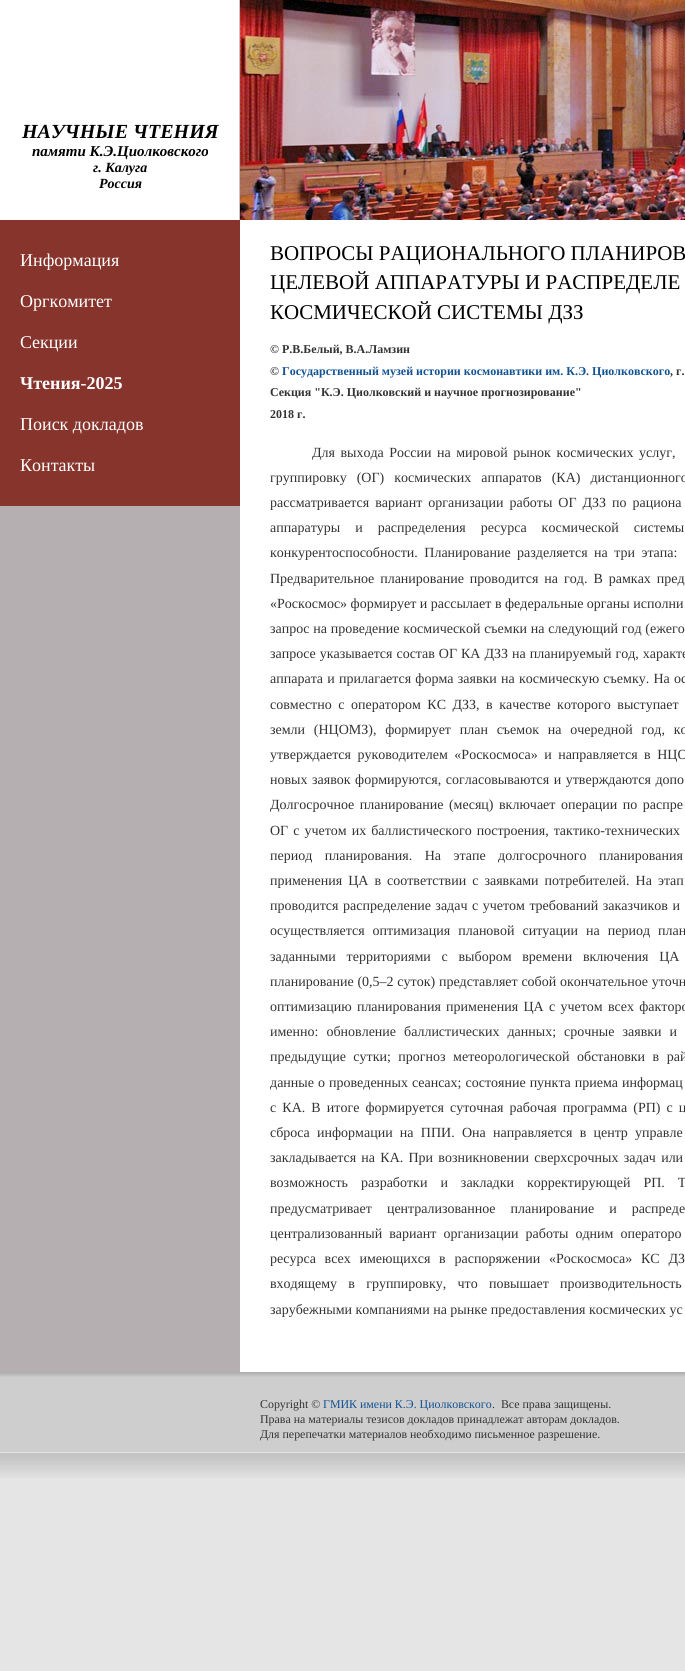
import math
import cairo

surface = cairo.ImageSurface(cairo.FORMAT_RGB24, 685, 1671)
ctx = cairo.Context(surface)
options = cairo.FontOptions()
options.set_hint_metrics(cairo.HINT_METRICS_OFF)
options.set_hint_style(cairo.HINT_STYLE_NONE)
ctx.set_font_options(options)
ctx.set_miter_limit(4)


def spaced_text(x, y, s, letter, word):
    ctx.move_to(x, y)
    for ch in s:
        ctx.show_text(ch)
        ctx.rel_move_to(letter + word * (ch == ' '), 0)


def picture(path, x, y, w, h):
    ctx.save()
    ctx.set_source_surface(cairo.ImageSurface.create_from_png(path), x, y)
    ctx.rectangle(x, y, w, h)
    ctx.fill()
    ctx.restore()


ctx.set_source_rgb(0.898, 0.898, 0.898)
ctx.paint()
ctx.set_source_rgb(1, 1, 1)
ctx.rectangle(240, 220, 445, 1152)
ctx.fill()
ctx.set_source_rgb(0.71, 0.686, 0.694)
ctx.rectangle(0, 506, 240, 866)
ctx.fill()
ctx.set_source_rgb(1, 1, 1)
ctx.rectangle(0, 0, 239, 220)
ctx.fill()
picture("img1.png", 239, 0, 1, 220)
ctx.select_font_face("Liberation Serif", cairo.FONT_SLANT_ITALIC, cairo.FONT_WEIGHT_BOLD)
ctx.set_font_size(20)
ctx.set_source_rgb(0, 0, 0)
ctx.move_to(22, 138)
ctx.show_text("НАУЧНЫЕ ЧТЕНИЯ")
ctx.set_font_size(15)
ctx.move_to(32, 156)
ctx.show_text("памяти К.Э.Циолковского")
ctx.set_font_size(14)
ctx.move_to(93, 172)
ctx.show_text("г. Калуга")
ctx.move_to(99, 188)
ctx.show_text("Россия")
ctx.set_source_rgb(0.529, 0.204, 0.173)
ctx.rectangle(0, 220, 240, 286)
ctx.fill()
ctx.select_font_face("Liberation Serif")
ctx.set_font_size(18)
ctx.set_source_rgb(1, 1, 1)
ctx.move_to(20, 266)
ctx.show_text("Информация")
ctx.move_to(20, 307)
ctx.show_text("Оргкомитет")
ctx.move_to(20, 348)
ctx.show_text("Секции")
ctx.select_font_face("Liberation Serif", cairo.FONT_SLANT_NORMAL, cairo.FONT_WEIGHT_BOLD)
ctx.move_to(20, 389)
ctx.show_text("Чтения-2025")
ctx.select_font_face("Liberation Serif")
ctx.move_to(20, 430)
ctx.show_text("Поиск докладов")
ctx.move_to(20, 471)
ctx.show_text("Контакты")
picture("img2.png", 240, 0, 445, 220)
ctx.set_font_size(21)
ctx.set_source_rgb(0, 0, 0)
ctx.move_to(270, 260)
ctx.show_text("ВОПРОСЫ РАЦИОНАЛЬНОГО ПЛАНИРОВ")
ctx.move_to(270, 289)
ctx.show_text("ЦЕЛЕВОЙ АППАРАТУРЫ И РАСПРЕДЕЛЕ")
ctx.move_to(270, 319)
ctx.show_text("КОСМИЧЕСКОЙ СИСТЕМЫ ДЗЗ")
ctx.select_font_face("Liberation Serif", cairo.FONT_SLANT_NORMAL, cairo.FONT_WEIGHT_BOLD)
ctx.set_font_size(12)
ctx.set_source_rgb(0.2, 0.2, 0.2)
ctx.move_to(270, 353)
ctx.show_text("© Р.В.Белый, В.А.Ламзин")
ctx.move_to(270, 375)
ctx.show_text("©")
ctx.set_source_rgb(0.075, 0.322, 0.576)
ctx.move_to(282, 375)
ctx.show_text("Государственный музей истории космонавтики им. К.Э. Циолковского")
ctx.set_source_rgb(0.2, 0.2, 0.2)
ctx.move_to(670, 375)
ctx.show_text(", г.")
ctx.move_to(270, 396)
ctx.show_text("Секция \"К.Э. Циолковский и научное прогнозирование\"")
ctx.move_to(270, 418)
ctx.show_text("2018 г.")
ctx.select_font_face("Liberation Serif")
ctx.set_font_size(14)
spaced_text(312, 457, "Для выхода России на мировой рынок космических услуг,", 0, 2)
spaced_text(270, 482, "группировку (ОГ) космических аппаратов (КА) дистанционного", 0, 6.5)
spaced_text(270, 507, "рассматривается вариант организации работы ОГ ДЗЗ по рациона", 0, 2.5)
spaced_text(270, 532, "аппаратуры и распределения ресурса космической системы", 0, 11.5)
spaced_text(270, 557, "конкурентоспособности. Планирование разделяется на три этапа:", 0, 3)
spaced_text(270, 583, "Предварительное планирование проводится на год. В рамках пред", 0, 2.5)
ctx.move_to(270, 608)
ctx.show_text("«Роскосмос» формирует и рассылает в федеральные органы исполни")
spaced_text(270, 633, "запрос на проведение космической съемки на следующий год (ежего", 0, 0.25)
spaced_text(270, 658, "запросе указывается состав ОГ КА ДЗЗ на планируемый год, характе", 0, 0.5)
spaced_text(270, 683, "аппарата и прилагается форма заявки на космическую съемку. На ос", 0, 0.75)
spaced_text(270, 709, "совместно с оператором КС ДЗЗ, в качестве которого выступает", 0, 3)
spaced_text(270, 734, "земли (НЦОМЗ), формирует план съемок на очередной год, ко", 0, 5.25)
spaced_text(270, 759, "утверждается руководителем «Роскосмоса» и направляется в НЦО", 0, 3)
spaced_text(270, 784, "новых заявок формируются, согласовываются и утверждаются допо", 0, 1)
spaced_text(270, 809, "Долгосрочное планирование (месяц) включает операции по распре", 0, 2)
spaced_text(270, 835, "ОГ с учетом их баллистического построения, тактико-технических", 0, 1.5)
spaced_text(270, 860, "период планирования. На этапе долгосрочного планирования", 0, 9)
spaced_text(270, 885, "применения ЦА в соответствии с заявками потребителей. На этап", 0, 2.5)
spaced_text(270, 910, "проводится распределение задач с учетом требований заказчиков и", 0, 1)
spaced_text(270, 935, "осуществляется оптимизация плановой ситуации на период план", 0, 4.5)
spaced_text(270, 961, "заданными территориями с выбором времени включения ЦА", 0, 7.25)
spaced_text(270, 986, "планирование (0,5–2 суток) представляет собой окончательное уточн", 0, 0.25)
spaced_text(270, 1011, "оптимизацию планирования применения ЦА с учетом всех факторо", 0, 1.75)
spaced_text(270, 1036, "именно: обновление баллистических данных; срочные заявки и", 0, 4.5)
spaced_text(270, 1061, "предыдущие сутки; прогноз метеорологической обстановки в рай", 0, 4)
spaced_text(270, 1087, "данные о проведенных сеансах; состояние пункта приема информац", 0, 0.5)
spaced_text(270, 1112, "с КА. В итоге формируется суточная рабочая программа (РП) с ц", 0, 2.6)
spaced_text(270, 1137, "сброса информации на ППИ. Она направляется в центр управле", 0, 3.75)
spaced_text(270, 1162, "закладывается на КА. При возникновении сверхсрочных задач или", 0, 1.75)
spaced_text(270, 1187, "возможность разработки и закладки корректирующей РП. Т", 0, 9.5)
spaced_text(270, 1213, "предусматривает централизованное планирование и распреде", 0, 11.5)
spaced_text(270, 1238, "централизованный вариант организации работы одним операторо", 0, 3.5)
spaced_text(270, 1263, "ресурса всех имеющихся в распоряжении «Роскосмоса» КС ДЗ", 0, 5.25)
spaced_text(270, 1288, "входящему в группировку, что повышает производительность", 0, 7.75)
ctx.move_to(270, 1314)
ctx.show_text("зарубежными компаниями на рынке предоставления космических ус")
picture("img3.png", 0, 1372, 685, 106)
ctx.set_font_size(11.9)
ctx.move_to(260, 1408)
ctx.show_text("Copyright ©")
ctx.set_source_rgb(0.075, 0.322, 0.576)
ctx.move_to(323, 1408)
ctx.show_text("ГМИК имени К.Э. Циолковского")
ctx.set_source_rgb(0.2, 0.2, 0.2)
ctx.move_to(492, 1408)
ctx.show_text(".  Все права защищены.")
ctx.move_to(260, 1423)
ctx.show_text("Права на материалы тезисов докладов принадлежат авторам докладов.")
ctx.move_to(260, 1438)
ctx.show_text("Для перепечатки материалов необходимо письменное разрешение.")
surface.write_to_png("page.png")
